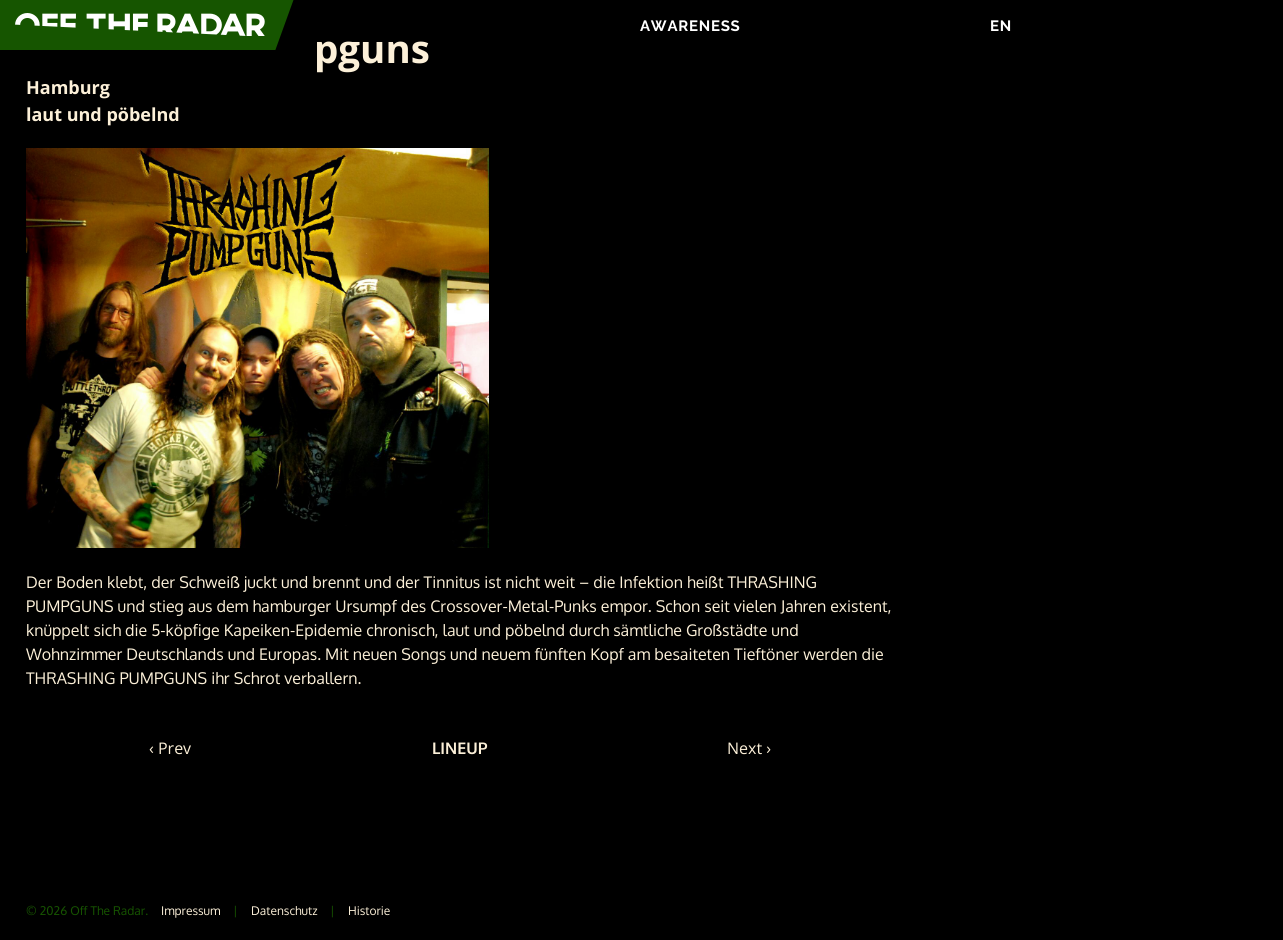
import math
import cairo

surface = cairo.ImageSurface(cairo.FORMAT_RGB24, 1283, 940)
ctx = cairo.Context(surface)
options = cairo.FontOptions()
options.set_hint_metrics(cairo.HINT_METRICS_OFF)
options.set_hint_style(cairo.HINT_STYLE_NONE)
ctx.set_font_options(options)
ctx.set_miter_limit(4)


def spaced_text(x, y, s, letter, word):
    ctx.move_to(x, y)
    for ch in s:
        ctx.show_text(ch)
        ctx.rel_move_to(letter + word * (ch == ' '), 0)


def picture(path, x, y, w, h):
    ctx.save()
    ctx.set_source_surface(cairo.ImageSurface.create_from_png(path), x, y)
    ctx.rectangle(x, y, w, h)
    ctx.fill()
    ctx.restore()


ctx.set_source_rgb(0, 0, 0)
ctx.paint()
ctx.set_source_rgb(0.086, 0.333, 0)
ctx.rectangle(0, 0, 294, 50)
ctx.fill()
picture("img1.png", 15, 13, 250, 23)
ctx.save()
ctx.rectangle(0, 0, 300, 50)
ctx.clip()
ctx.set_source_rgb(0, 0, 0)
ctx.new_path()
ctx.move_to(262, 87)
ctx.line_to(313, -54)
ctx.line_to(388, -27)
ctx.line_to(337, 114)
ctx.close_path()
ctx.fill()
ctx.restore()
ctx.select_font_face("Raleway", cairo.FONT_SLANT_NORMAL, cairo.FONT_WEIGHT_BOLD)
ctx.set_font_size(15)
ctx.set_source_rgb(1, 1, 1)
spaced_text(640, 31, "AWARENESS", 0.75, 0)
spaced_text(990, 31, "EN", 0.75, 0)
ctx.select_font_face("Open Sans", cairo.FONT_SLANT_NORMAL, cairo.FONT_WEIGHT_BOLD)
ctx.set_font_size(38.5)
ctx.set_source_rgb(0.988, 0.941, 0.847)
ctx.move_to(314, 63)
ctx.show_text("pguns")
ctx.set_font_size(18)
ctx.move_to(26, 94)
ctx.show_text("Hamburg")
ctx.move_to(26, 121)
ctx.show_text("laut und pöbelnd")
picture("img2.png", 26, 148, 463, 400)
ctx.select_font_face("Oxygen")
ctx.set_font_size(16)
ctx.move_to(26, 588)
ctx.show_text("Der Boden klebt, der Schweiß juckt und brennt und der Tinnitus ist nicht weit – die Infektion heißt THRASHING")
ctx.move_to(26, 612)
ctx.show_text("PUMPGUNS und stieg aus dem hamburger Ursumpf des Crossover-Metal-Punks empor. Schon seit vielen Jahren existent,")
ctx.move_to(26, 636)
ctx.show_text("knüppelt sich die 5-köpfige Kapeiken-Epidemie chronisch, laut und pöbelnd durch sämtliche Großstädte und")
ctx.move_to(26, 660)
ctx.show_text("Wohnzimmer Deutschlands und Europas. Mit neuen Songs und neuem fünften Kopf am besaiteten Tieftöner werden die")
ctx.move_to(26, 684)
ctx.show_text("THRASHING PUMPGUNS ihr Schrot verballern.")
ctx.select_font_face("Open Sans")
ctx.move_to(149, 754)
ctx.show_text("‹ Prev")
ctx.select_font_face("Oxygen", cairo.FONT_SLANT_NORMAL, cairo.FONT_WEIGHT_BOLD)
ctx.move_to(432, 754)
ctx.show_text("LINEUP")
ctx.select_font_face("Open Sans")
ctx.move_to(727, 754)
ctx.show_text("Next ›")
ctx.select_font_face("Oxygen")
ctx.set_font_size(12)
ctx.set_source_rgb(0.086, 0.333, 0)
ctx.move_to(26, 915)
ctx.show_text("© 2026 Off The Radar.")
ctx.set_source_rgb(0.988, 0.941, 0.847)
ctx.move_to(161, 915)
ctx.show_text("Impressum")
ctx.set_source_rgb(0.086, 0.333, 0)
ctx.move_to(233, 915)
ctx.show_text("|")
ctx.set_source_rgb(0.988, 0.941, 0.847)
ctx.move_to(251, 915)
ctx.show_text("Datenschutz")
ctx.set_source_rgb(0.086, 0.333, 0)
ctx.move_to(330, 915)
ctx.show_text("|")
ctx.set_source_rgb(0.988, 0.941, 0.847)
ctx.move_to(348, 915)
ctx.show_text("Historie")
surface.write_to_png("page.png")
